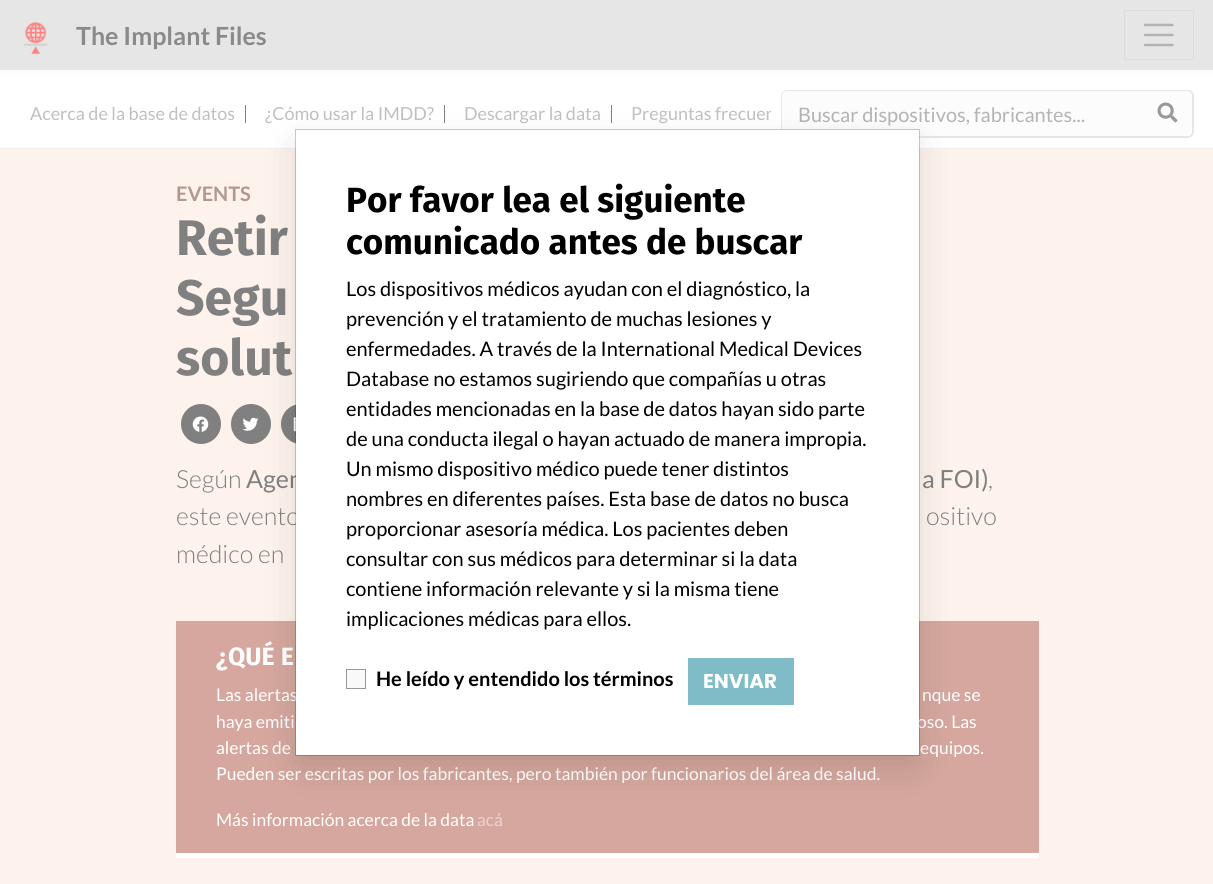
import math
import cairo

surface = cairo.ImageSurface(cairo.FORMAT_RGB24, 1213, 884)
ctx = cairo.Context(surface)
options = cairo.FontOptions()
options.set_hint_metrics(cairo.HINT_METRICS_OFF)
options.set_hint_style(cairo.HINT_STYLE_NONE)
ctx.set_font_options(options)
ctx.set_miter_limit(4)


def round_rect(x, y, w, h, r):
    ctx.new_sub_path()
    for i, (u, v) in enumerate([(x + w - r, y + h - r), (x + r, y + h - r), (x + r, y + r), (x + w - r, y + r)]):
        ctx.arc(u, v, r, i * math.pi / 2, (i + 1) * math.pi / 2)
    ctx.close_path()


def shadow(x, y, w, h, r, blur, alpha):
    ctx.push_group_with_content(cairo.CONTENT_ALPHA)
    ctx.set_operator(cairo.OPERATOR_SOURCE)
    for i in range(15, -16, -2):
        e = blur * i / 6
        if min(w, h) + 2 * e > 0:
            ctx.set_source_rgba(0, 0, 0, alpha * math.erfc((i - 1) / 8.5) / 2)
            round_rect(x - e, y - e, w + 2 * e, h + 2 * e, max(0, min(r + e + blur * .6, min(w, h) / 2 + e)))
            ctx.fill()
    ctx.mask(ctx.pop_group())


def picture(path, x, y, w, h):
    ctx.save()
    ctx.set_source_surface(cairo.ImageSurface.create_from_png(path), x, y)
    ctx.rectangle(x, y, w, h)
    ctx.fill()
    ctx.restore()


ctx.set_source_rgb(1, 1, 1)
ctx.paint()
ctx.set_source_rgb(0.502, 0.502, 0.502)
shadow(0, 0, 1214, 70, 0, 4, 0.1)
ctx.set_source_rgb(0.902, 0.902, 0.902)
ctx.rectangle(0, 0, 1213, 70)
ctx.fill()
picture("img1.png", 24, 22, 24, 33)
ctx.select_font_face("Lato", cairo.FONT_SLANT_NORMAL, cairo.FONT_WEIGHT_BOLD)
ctx.set_font_size(25)
ctx.set_source_rgb(0.541, 0.541, 0.541)
ctx.move_to(76, 45)
ctx.show_text("The Implant Files")
ctx.rectangle(1124.5, 10.5, 69, 49)
ctx.set_source_rgb(0.863, 0.863, 0.863)
ctx.set_line_width(1)
ctx.stroke()
ctx.new_path()
ctx.move_to(1145, 25)
ctx.line_to(1172.5, 25)
ctx.move_to(1145, 35)
ctx.line_to(1172.5, 35)
ctx.move_to(1145, 45)
ctx.line_to(1172.5, 45)
ctx.set_source_rgb(0.702, 0.702, 0.702)
ctx.set_line_width(2.5)
ctx.set_line_cap(cairo.LINE_CAP_ROUND)
ctx.stroke()
ctx.set_source_rgb(0.937, 0.937, 0.937)
ctx.rectangle(0, 148, 1213, 1)
ctx.fill()
ctx.select_font_face("Lato")
ctx.set_font_size(18)
ctx.set_source_rgb(0.753, 0.753, 0.753)
ctx.move_to(30, 120)
ctx.show_text("Acerca de la base de datos")
ctx.set_source_rgb(0.502, 0.502, 0.502)
ctx.rectangle(245, 105, 1, 18)
ctx.fill()
ctx.set_source_rgb(0.753, 0.753, 0.753)
ctx.move_to(265, 120)
ctx.show_text("¿Cómo usar la IMDD?")
ctx.set_source_rgb(0.502, 0.502, 0.502)
ctx.rectangle(444, 105, 1, 18)
ctx.fill()
ctx.set_source_rgb(0.753, 0.753, 0.753)
ctx.move_to(464, 120)
ctx.show_text("Descargar la data")
ctx.set_source_rgb(0.502, 0.502, 0.502)
ctx.rectangle(611, 105, 1, 18)
ctx.fill()
ctx.save()
ctx.rectangle(20, 90, 751, 48)
ctx.clip()
ctx.set_source_rgb(0.753, 0.753, 0.753)
ctx.move_to(631, 120)
ctx.show_text("Preguntas frecuen")
ctx.restore()
ctx.set_source_rgb(0.988, 0.988, 0.988)
ctx.new_path()
ctx.move_to(1143, 90)
ctx.line_to(1188, 90)
ctx.curve_to(1191.5, 90, 1194, 92.5, 1194, 96)
ctx.line_to(1194, 132)
ctx.curve_to(1194, 135.5, 1191.5, 138, 1188, 138)
ctx.line_to(1143, 138)
ctx.close_path()
ctx.fill()
ctx.set_source_rgb(0.902, 0.902, 0.902)
ctx.set_fill_rule(cairo.FILL_RULE_EVEN_ODD)
ctx.new_path()
ctx.move_to(1142, 90)
ctx.line_to(1188, 90)
ctx.curve_to(1191, 90, 1194, 93, 1194, 96)
ctx.line_to(1194, 132)
ctx.curve_to(1194, 135, 1191, 138, 1188, 138)
ctx.line_to(1142, 138)
ctx.close_path()
ctx.move_to(1142, 91)
ctx.line_to(1188, 91)
ctx.curve_to(1190, 91, 1192, 93, 1192, 96)
ctx.line_to(1192, 132)
ctx.curve_to(1192, 134, 1190, 136, 1188, 136)
ctx.line_to(1142, 136)
ctx.close_path()
ctx.fill()
ctx.set_source_rgb(0.988, 0.988, 0.988)
ctx.new_path()
ctx.move_to(788, 91)
ctx.line_to(1144, 91)
ctx.line_to(1144, 136)
ctx.line_to(788, 136)
ctx.curve_to(785, 136, 783, 134, 783, 131)
ctx.line_to(783, 96)
ctx.curve_to(783, 93, 785, 91, 788, 91)
ctx.close_path()
ctx.fill()
ctx.set_source_rgb(0.902, 0.902, 0.902)
ctx.new_path()
ctx.move_to(787, 90)
ctx.line_to(1144, 90)
ctx.line_to(1144, 138)
ctx.line_to(787, 138)
ctx.curve_to(784, 138, 781, 135, 781, 132)
ctx.line_to(781, 96)
ctx.curve_to(781, 93, 784, 90, 787, 90)
ctx.close_path()
ctx.move_to(787, 91)
ctx.line_to(1144, 91)
ctx.line_to(1144, 136)
ctx.line_to(787, 136)
ctx.curve_to(785, 136, 782, 134, 782, 132)
ctx.line_to(782, 96)
ctx.curve_to(782, 93, 785, 91, 787, 91)
ctx.close_path()
ctx.fill()
ctx.set_font_size(20)
ctx.set_source_rgb(0.706, 0.706, 0.706)
ctx.move_to(798, 122)
ctx.show_text("Buscar dispositivos, fabricantes...")
picture("img2.png", 1157, 102, 21, 21)
ctx.set_source_rgb(0.996, 0.953, 0.922)
ctx.rectangle(0, 149, 1213, 735)
ctx.fill()
ctx.select_font_face("Lato", cairo.FONT_SLANT_NORMAL, cairo.FONT_WEIGHT_BOLD)
ctx.set_source_rgb(0.702, 0.592, 0.573)
ctx.move_to(176, 201)
ctx.show_text("EVENTS")
ctx.select_font_face("Fira Sans", cairo.FONT_SLANT_NORMAL, cairo.FONT_WEIGHT_BOLD)
ctx.set_font_size(50)
ctx.set_source_rgb(0.502, 0.502, 0.502)
ctx.move_to(176, 255)
ctx.show_text("Retir")
ctx.move_to(176, 315)
ctx.show_text("Segu")
ctx.move_to(176, 375)
ctx.show_text("solut")
ctx.new_path()
ctx.arc(201, 424, 20, 0, 2 * math.pi)
ctx.fill()
picture("img3.png", 192, 416, 17, 16)
ctx.arc(251, 424, 20, 0, 2 * math.pi)
ctx.fill()
picture("img4.png", 242, 417, 17, 14)
ctx.arc(301, 424, 20, 0, 2 * math.pi)
ctx.fill()
picture("img5.png", 293, 417, 3, 15)
ctx.select_font_face("Lato Light")
ctx.set_font_size(25)
ctx.move_to(176, 488)
ctx.show_text("Según")
ctx.select_font_face("Lato")
ctx.move_to(246, 488)
ctx.show_text("Agen")
ctx.move_to(922, 488)
ctx.show_text("a FOI)")
ctx.select_font_face("Lato Light")
ctx.move_to(988, 488)
ctx.show_text(",")
ctx.move_to(176, 525)
ctx.show_text("este evento")
ctx.move_to(926, 525)
ctx.show_text("ositivo")
ctx.move_to(176, 563)
ctx.show_text("médico en")
ctx.set_source_rgb(0.835, 0.655, 0.62)
ctx.rectangle(176, 621, 863, 232)
ctx.fill()
ctx.set_source_rgb(1, 1, 1)
ctx.rectangle(176, 853, 863, 5)
ctx.fill()
ctx.select_font_face("Fira Sans", cairo.FONT_SLANT_NORMAL, cairo.FONT_WEIGHT_BOLD)
ctx.move_to(216, 665)
ctx.show_text("¿QUÉ E")
ctx.select_font_face("Lato")
ctx.set_font_size(17.5)
ctx.move_to(216, 701)
ctx.show_text("Las alertas")
ctx.move_to(922, 701)
ctx.show_text("nque se")
ctx.move_to(216, 728)
ctx.show_text("haya emiti")
ctx.move_to(917, 728)
ctx.show_text("oso. Las")
ctx.move_to(216, 754)
ctx.show_text("alertas de")
ctx.move_to(920, 754)
ctx.show_text("equipos.")
ctx.move_to(216, 780)
ctx.show_text("Pueden ser escritas por los fabricantes, pero también por funcionarios del área de salud.")
ctx.move_to(216, 826)
ctx.show_text("Más información acerca de la data")
ctx.set_source_rgb(0.918, 0.827, 0.812)
ctx.move_to(477, 826)
ctx.show_text("acá")
ctx.set_source_rgb(0, 0, 0)
shadow(301, 148, 613, 615, 0, 19, 0.15)
ctx.set_source_rgb(1, 1, 1)
ctx.rectangle(296, 130, 623, 625)
ctx.fill()
ctx.rectangle(295.5, 129.5, 624, 626)
ctx.set_source_rgba(0, 0, 0, 0.2)
ctx.set_line_width(1)
ctx.set_line_cap(cairo.LINE_CAP_BUTT)
ctx.stroke()
ctx.select_font_face("Fira Sans", cairo.FONT_SLANT_NORMAL, cairo.FONT_WEIGHT_BOLD)
ctx.set_font_size(35)
ctx.set_source_rgb(0, 0, 0)
ctx.move_to(346, 212)
ctx.show_text("Por favor lea el siguiente")
ctx.move_to(346, 254)
ctx.show_text("comunicado antes de buscar")
ctx.select_font_face("Lato")
ctx.set_font_size(20)
ctx.move_to(346, 296)
ctx.show_text("Los dispositivos médicos ayudan con el diagnóstico, la")
ctx.move_to(346, 326)
ctx.show_text("prevención y el tratamiento de muchas lesiones y")
ctx.move_to(346, 356)
ctx.show_text("enfermedades. A través de la International Medical Devices")
ctx.move_to(346, 386)
ctx.show_text("Database no estamos sugiriendo que compañías u otras")
ctx.move_to(346, 416)
ctx.show_text("entidades mencionadas en la base de datos hayan sido parte")
ctx.move_to(346, 446)
ctx.show_text("de una conducta ilegal o hayan actuado de manera impropia.")
ctx.move_to(346, 476)
ctx.show_text("Un mismo dispositivo médico puede tener distintos")
ctx.move_to(346, 506)
ctx.show_text("nombres en diferentes países. Esta base de datos no busca")
ctx.move_to(346, 536)
ctx.show_text("proporcionar asesoría médica. Los pacientes deben")
ctx.move_to(346, 566)
ctx.show_text("consultar con sus médicos para determinar si la data")
ctx.move_to(346, 596)
ctx.show_text("contiene información relevante y si la misma tiene")
ctx.move_to(346, 626)
ctx.show_text("implicaciones médicas para ellos.")
ctx.set_source_rgb(0.973, 0.973, 0.973)
ctx.rectangle(346.5, 669.5, 19, 19)
ctx.fill_preserve()
ctx.set_source_rgb(0.6, 0.6, 0.6)
ctx.stroke()
ctx.select_font_face("Lato", cairo.FONT_SLANT_NORMAL, cairo.FONT_WEIGHT_BOLD)
ctx.set_source_rgb(0, 0, 0)
ctx.move_to(376, 686)
ctx.show_text("He leído y entendido los términos")
ctx.set_source_rgb(0.502, 0.737, 0.784)
ctx.rectangle(688, 658, 106, 47)
ctx.fill()
ctx.select_font_face("Poppins", cairo.FONT_SLANT_NORMAL, cairo.FONT_WEIGHT_BOLD)
ctx.set_source_rgb(1, 1, 1)
ctx.move_to(703, 688)
ctx.show_text("ENVIAR")
surface.write_to_png("page.png")
